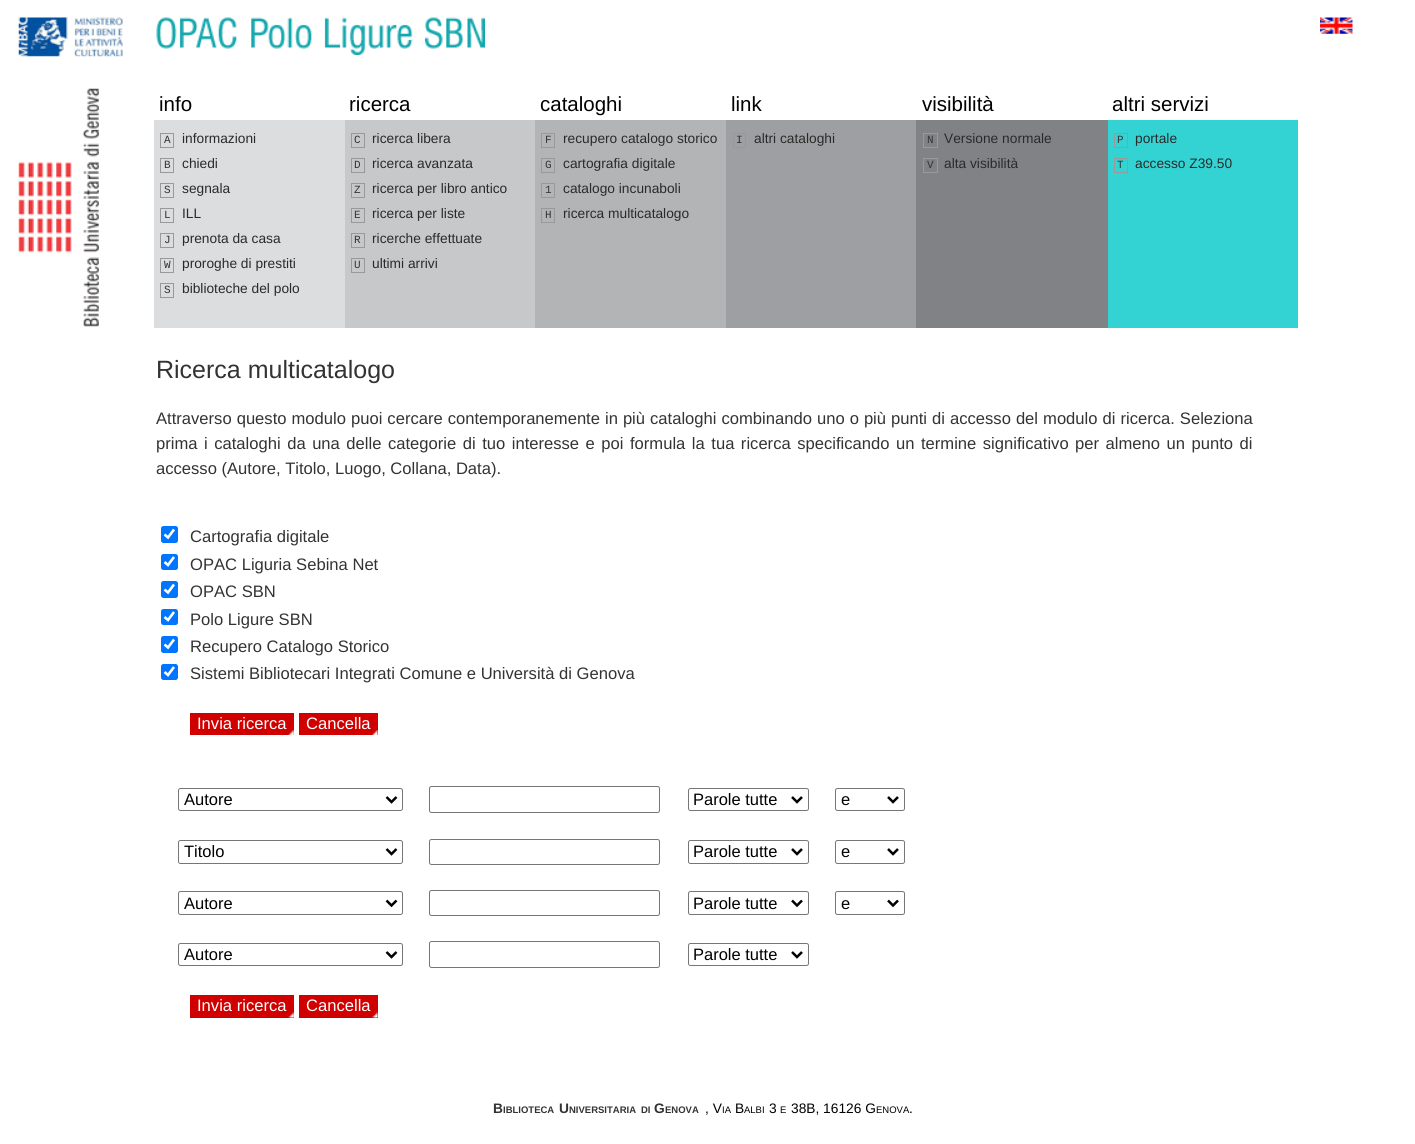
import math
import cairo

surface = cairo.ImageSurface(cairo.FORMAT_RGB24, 1415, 1144)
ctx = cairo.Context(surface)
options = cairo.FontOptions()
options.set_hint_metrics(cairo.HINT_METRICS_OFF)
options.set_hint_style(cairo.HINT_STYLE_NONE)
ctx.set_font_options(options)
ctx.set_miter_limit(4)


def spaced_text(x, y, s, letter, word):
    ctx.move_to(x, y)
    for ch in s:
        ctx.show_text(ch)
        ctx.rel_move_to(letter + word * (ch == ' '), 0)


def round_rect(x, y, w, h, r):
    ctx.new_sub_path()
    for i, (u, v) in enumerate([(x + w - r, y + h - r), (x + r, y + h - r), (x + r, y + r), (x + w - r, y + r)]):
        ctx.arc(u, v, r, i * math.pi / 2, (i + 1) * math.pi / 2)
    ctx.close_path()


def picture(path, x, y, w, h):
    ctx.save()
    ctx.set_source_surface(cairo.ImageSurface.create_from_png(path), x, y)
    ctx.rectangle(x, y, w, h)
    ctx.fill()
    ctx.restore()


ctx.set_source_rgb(1, 1, 1)
ctx.paint()
picture("img1.png", 18, 17, 105, 40)
picture("img2.png", 156, 17, 329, 38)
picture("img3.png", 18, 88, 81, 239)
picture("img4.png", 1320, 17, 33, 17)
ctx.select_font_face("Liberation Sans")
ctx.set_font_size(20.5)
ctx.set_source_rgb(0, 0, 0)
ctx.move_to(159, 111)
ctx.show_text("info")
ctx.move_to(349, 111)
ctx.show_text("ricerca")
ctx.move_to(540, 111)
ctx.show_text("cataloghi")
ctx.move_to(731, 111)
ctx.show_text("link")
ctx.move_to(922, 111)
ctx.show_text("visibilità")
ctx.move_to(1112, 111)
ctx.show_text("altri servizi")
ctx.set_source_rgb(0.863, 0.867, 0.871)
ctx.rectangle(154, 120, 191, 208)
ctx.fill()
ctx.rectangle(160.5, 133.5, 13, 14)
ctx.set_source_rgb(0.6, 0.6, 0.6)
ctx.set_line_width(1)
ctx.stroke()
ctx.select_font_face("Liberation Mono")
ctx.set_font_size(11)
ctx.set_source_rgb(0.2, 0.2, 0.2)
ctx.move_to(164, 143)
ctx.show_text("A")
ctx.select_font_face("Liberation Sans")
ctx.set_font_size(13.75)
ctx.set_source_rgb(0.165, 0.165, 0.165)
ctx.move_to(182, 143)
ctx.show_text("informazioni")
ctx.rectangle(160.5, 158.5, 13, 14)
ctx.set_source_rgb(0.6, 0.6, 0.6)
ctx.stroke()
ctx.select_font_face("Liberation Mono")
ctx.set_font_size(11)
ctx.set_source_rgb(0.2, 0.2, 0.2)
ctx.move_to(164, 168)
ctx.show_text("B")
ctx.select_font_face("Liberation Sans")
ctx.set_font_size(13.75)
ctx.set_source_rgb(0.165, 0.165, 0.165)
ctx.move_to(182, 168)
ctx.show_text("chiedi")
ctx.rectangle(160.5, 183.5, 13, 14)
ctx.set_source_rgb(0.6, 0.6, 0.6)
ctx.stroke()
ctx.select_font_face("Liberation Mono")
ctx.set_font_size(11)
ctx.set_source_rgb(0.2, 0.2, 0.2)
ctx.move_to(164, 193)
ctx.show_text("S")
ctx.select_font_face("Liberation Sans")
ctx.set_font_size(13.75)
ctx.set_source_rgb(0.165, 0.165, 0.165)
ctx.move_to(182, 193)
ctx.show_text("segnala")
ctx.rectangle(160.5, 208.5, 13, 14)
ctx.set_source_rgb(0.6, 0.6, 0.6)
ctx.stroke()
ctx.select_font_face("Liberation Mono")
ctx.set_font_size(11)
ctx.set_source_rgb(0.2, 0.2, 0.2)
ctx.move_to(164, 218)
ctx.show_text("L")
ctx.select_font_face("Liberation Sans")
ctx.set_font_size(13.75)
ctx.set_source_rgb(0.165, 0.165, 0.165)
ctx.move_to(182, 218)
ctx.show_text("ILL")
ctx.rectangle(160.5, 233.5, 13, 14)
ctx.set_source_rgb(0.6, 0.6, 0.6)
ctx.stroke()
ctx.select_font_face("Liberation Mono")
ctx.set_font_size(11)
ctx.set_source_rgb(0.2, 0.2, 0.2)
ctx.move_to(164, 243)
ctx.show_text("J")
ctx.select_font_face("Liberation Sans")
ctx.set_font_size(13.75)
ctx.set_source_rgb(0.165, 0.165, 0.165)
ctx.move_to(182, 243)
ctx.show_text("prenota da casa")
ctx.rectangle(160.5, 258.5, 13, 14)
ctx.set_source_rgb(0.6, 0.6, 0.6)
ctx.stroke()
ctx.select_font_face("Liberation Mono")
ctx.set_font_size(11)
ctx.set_source_rgb(0.2, 0.2, 0.2)
ctx.move_to(164, 268)
ctx.show_text("W")
ctx.select_font_face("Liberation Sans")
ctx.set_font_size(13.75)
ctx.set_source_rgb(0.165, 0.165, 0.165)
ctx.move_to(182, 268)
ctx.show_text("proroghe di prestiti")
ctx.rectangle(160.5, 283.5, 13, 14)
ctx.set_source_rgb(0.6, 0.6, 0.6)
ctx.stroke()
ctx.select_font_face("Liberation Mono")
ctx.set_font_size(11)
ctx.set_source_rgb(0.2, 0.2, 0.2)
ctx.move_to(164, 293)
ctx.show_text("S")
ctx.select_font_face("Liberation Sans")
ctx.set_font_size(13.75)
ctx.set_source_rgb(0.165, 0.165, 0.165)
ctx.move_to(182, 293)
ctx.show_text("biblioteche del polo")
ctx.set_source_rgb(0.776, 0.784, 0.792)
ctx.rectangle(345, 120, 190, 208)
ctx.fill()
ctx.rectangle(351.5, 133.5, 13, 14)
ctx.set_source_rgb(0.6, 0.6, 0.6)
ctx.stroke()
ctx.select_font_face("Liberation Mono")
ctx.set_font_size(11)
ctx.set_source_rgb(0.2, 0.2, 0.2)
ctx.move_to(354, 143)
ctx.show_text("C")
ctx.select_font_face("Liberation Sans")
ctx.set_font_size(13.75)
ctx.set_source_rgb(0.165, 0.165, 0.165)
ctx.move_to(372, 143)
ctx.show_text("ricerca libera")
ctx.rectangle(351.5, 158.5, 13, 14)
ctx.set_source_rgb(0.6, 0.6, 0.6)
ctx.stroke()
ctx.select_font_face("Liberation Mono")
ctx.set_font_size(11)
ctx.set_source_rgb(0.2, 0.2, 0.2)
ctx.move_to(354, 168)
ctx.show_text("D")
ctx.select_font_face("Liberation Sans")
ctx.set_font_size(13.75)
ctx.set_source_rgb(0.165, 0.165, 0.165)
ctx.move_to(372, 168)
ctx.show_text("ricerca avanzata")
ctx.rectangle(351.5, 183.5, 13, 14)
ctx.set_source_rgb(0.6, 0.6, 0.6)
ctx.stroke()
ctx.select_font_face("Liberation Mono")
ctx.set_font_size(11)
ctx.set_source_rgb(0.2, 0.2, 0.2)
ctx.move_to(354, 193)
ctx.show_text("Z")
ctx.select_font_face("Liberation Sans")
ctx.set_font_size(13.75)
ctx.set_source_rgb(0.165, 0.165, 0.165)
ctx.move_to(372, 193)
ctx.show_text("ricerca per libro antico")
ctx.rectangle(351.5, 208.5, 13, 14)
ctx.set_source_rgb(0.6, 0.6, 0.6)
ctx.stroke()
ctx.select_font_face("Liberation Mono")
ctx.set_font_size(11)
ctx.set_source_rgb(0.2, 0.2, 0.2)
ctx.move_to(354, 218)
ctx.show_text("E")
ctx.select_font_face("Liberation Sans")
ctx.set_font_size(13.75)
ctx.set_source_rgb(0.165, 0.165, 0.165)
ctx.move_to(372, 218)
ctx.show_text("ricerca per liste")
ctx.rectangle(351.5, 233.5, 13, 14)
ctx.set_source_rgb(0.6, 0.6, 0.6)
ctx.stroke()
ctx.select_font_face("Liberation Mono")
ctx.set_font_size(11)
ctx.set_source_rgb(0.2, 0.2, 0.2)
ctx.move_to(354, 243)
ctx.show_text("R")
ctx.select_font_face("Liberation Sans")
ctx.set_font_size(13.75)
ctx.set_source_rgb(0.165, 0.165, 0.165)
ctx.move_to(372, 243)
ctx.show_text("ricerche effettuate")
ctx.rectangle(351.5, 258.5, 13, 14)
ctx.set_source_rgb(0.6, 0.6, 0.6)
ctx.stroke()
ctx.select_font_face("Liberation Mono")
ctx.set_font_size(11)
ctx.set_source_rgb(0.2, 0.2, 0.2)
ctx.move_to(354, 268)
ctx.show_text("U")
ctx.select_font_face("Liberation Sans")
ctx.set_font_size(13.75)
ctx.set_source_rgb(0.165, 0.165, 0.165)
ctx.move_to(372, 268)
ctx.show_text("ultimi arrivi")
ctx.set_source_rgb(0.698, 0.706, 0.714)
ctx.rectangle(535, 120, 191, 208)
ctx.fill()
ctx.rectangle(541.5, 133.5, 13, 14)
ctx.set_source_rgb(0.6, 0.6, 0.6)
ctx.stroke()
ctx.select_font_face("Liberation Mono")
ctx.set_font_size(11)
ctx.set_source_rgb(0.2, 0.2, 0.2)
ctx.move_to(545, 143)
ctx.show_text("F")
ctx.select_font_face("Liberation Sans")
ctx.set_font_size(13.75)
ctx.set_source_rgb(0.165, 0.165, 0.165)
ctx.move_to(563, 143)
ctx.show_text("recupero catalogo storico")
ctx.rectangle(541.5, 158.5, 13, 14)
ctx.set_source_rgb(0.6, 0.6, 0.6)
ctx.stroke()
ctx.select_font_face("Liberation Mono")
ctx.set_font_size(11)
ctx.set_source_rgb(0.2, 0.2, 0.2)
ctx.move_to(545, 168)
ctx.show_text("G")
ctx.select_font_face("Liberation Sans")
ctx.set_font_size(13.75)
ctx.set_source_rgb(0.165, 0.165, 0.165)
ctx.move_to(563, 168)
ctx.show_text("cartografia digitale")
ctx.rectangle(541.5, 183.5, 13, 14)
ctx.set_source_rgb(0.6, 0.6, 0.6)
ctx.stroke()
ctx.select_font_face("Liberation Mono")
ctx.set_font_size(11)
ctx.set_source_rgb(0.2, 0.2, 0.2)
ctx.move_to(545, 193)
ctx.show_text("1")
ctx.select_font_face("Liberation Sans")
ctx.set_font_size(13.75)
ctx.set_source_rgb(0.165, 0.165, 0.165)
ctx.move_to(563, 193)
ctx.show_text("catalogo incunaboli")
ctx.rectangle(541.5, 208.5, 13, 14)
ctx.set_source_rgb(0.6, 0.6, 0.6)
ctx.stroke()
ctx.select_font_face("Liberation Mono")
ctx.set_font_size(11)
ctx.set_source_rgb(0.2, 0.2, 0.2)
ctx.move_to(545, 218)
ctx.show_text("H")
ctx.select_font_face("Liberation Sans")
ctx.set_font_size(13.75)
ctx.set_source_rgb(0.165, 0.165, 0.165)
ctx.move_to(563, 218)
ctx.show_text("ricerca multicatalogo")
ctx.set_source_rgb(0.616, 0.624, 0.635)
ctx.rectangle(726, 120, 190, 208)
ctx.fill()
ctx.rectangle(733.5, 133.5, 12, 14)
ctx.set_source_rgb(0.6, 0.6, 0.6)
ctx.stroke()
ctx.select_font_face("Liberation Mono")
ctx.set_font_size(11)
ctx.set_source_rgb(0.2, 0.2, 0.2)
ctx.move_to(736, 143)
ctx.show_text("I")
ctx.select_font_face("Liberation Sans")
ctx.set_font_size(13.75)
ctx.set_source_rgb(0.165, 0.165, 0.165)
ctx.move_to(754, 143)
ctx.show_text("altri cataloghi")
ctx.set_source_rgb(0.502, 0.51, 0.522)
ctx.rectangle(916, 120, 192, 208)
ctx.fill()
ctx.rectangle(923.5, 133.5, 14, 14)
ctx.set_source_rgb(0.6, 0.6, 0.6)
ctx.stroke()
ctx.select_font_face("Liberation Mono")
ctx.set_font_size(11)
ctx.set_source_rgb(0.2, 0.2, 0.2)
ctx.move_to(927, 143)
ctx.show_text("N")
ctx.select_font_face("Liberation Sans")
ctx.set_font_size(13.75)
ctx.set_source_rgb(0.165, 0.165, 0.165)
ctx.move_to(944, 143)
ctx.show_text("Versione normale")
ctx.rectangle(923.5, 158.5, 14, 14)
ctx.set_source_rgb(0.6, 0.6, 0.6)
ctx.stroke()
ctx.select_font_face("Liberation Mono")
ctx.set_font_size(11)
ctx.set_source_rgb(0.2, 0.2, 0.2)
ctx.move_to(927, 168)
ctx.show_text("V")
ctx.select_font_face("Liberation Sans")
ctx.set_font_size(13.75)
ctx.set_source_rgb(0.165, 0.165, 0.165)
ctx.move_to(944, 168)
ctx.show_text("alta visibilità")
ctx.set_source_rgb(0.2, 0.827, 0.827)
ctx.rectangle(1108, 120, 190, 208)
ctx.fill()
ctx.rectangle(1114.5, 133.5, 13, 14)
ctx.set_source_rgb(0.6, 0.6, 0.6)
ctx.stroke()
ctx.select_font_face("Liberation Mono")
ctx.set_font_size(11)
ctx.set_source_rgb(0.2, 0.2, 0.2)
ctx.move_to(1117, 143)
ctx.show_text("P")
ctx.select_font_face("Liberation Sans")
ctx.set_font_size(13.75)
ctx.set_source_rgb(0.165, 0.165, 0.165)
ctx.move_to(1135, 143)
ctx.show_text("portale")
ctx.rectangle(1114.5, 158.5, 13, 14)
ctx.set_source_rgb(0.6, 0.6, 0.6)
ctx.stroke()
ctx.select_font_face("Liberation Mono")
ctx.set_font_size(11)
ctx.set_source_rgb(0.2, 0.2, 0.2)
ctx.move_to(1117, 168)
ctx.show_text("T")
ctx.select_font_face("Liberation Sans")
ctx.set_font_size(13.75)
ctx.set_source_rgb(0.165, 0.165, 0.165)
ctx.move_to(1135, 168)
ctx.show_text("accesso Z39.50")
ctx.set_font_size(25)
ctx.set_source_rgb(0.2, 0.2, 0.2)
ctx.move_to(156, 378)
ctx.show_text("Ricerca multicatalogo")
ctx.set_font_size(16.6)
spaced_text(156, 424, "Attraverso questo modulo puoi cercare contemporanemente in più cataloghi combinando uno o più punti di accesso del modulo di ricerca. Seleziona", 0, 0.4)
spaced_text(156, 449, "prima i cataloghi da una delle categorie di tuo interesse e poi formula la tua ricerca specificando un termine significativo per almeno un punto di", 0, 1.9)
ctx.move_to(156, 474)
ctx.show_text("accesso (Autore, Titolo, Luogo, Collana, Data).")
ctx.set_source_rgb(0, 0.459, 1)
round_rect(161, 526, 17, 17, 2.5)
ctx.fill()
ctx.new_path()
ctx.move_to(164.5, 534.5)
ctx.line_to(168, 537.5)
ctx.line_to(174, 529.5)
ctx.set_source_rgb(1, 1, 1)
ctx.set_line_width(2.6)
ctx.stroke()
ctx.set_source_rgb(0.2, 0.2, 0.2)
ctx.move_to(190, 542)
ctx.show_text("Cartografia digitale")
ctx.set_source_rgb(0, 0.459, 1)
round_rect(161, 554, 17, 16, 2.5)
ctx.fill()
ctx.new_path()
ctx.move_to(164.5, 562)
ctx.line_to(168, 565)
ctx.line_to(174, 557)
ctx.set_source_rgb(1, 1, 1)
ctx.stroke()
ctx.set_source_rgb(0.2, 0.2, 0.2)
ctx.move_to(190, 570)
ctx.show_text("OPAC Liguria Sebina Net")
ctx.set_source_rgb(0, 0.459, 1)
round_rect(161, 581, 17, 17, 2.5)
ctx.fill()
ctx.new_path()
ctx.move_to(164.5, 589.5)
ctx.line_to(168, 592.5)
ctx.line_to(174, 584.5)
ctx.set_source_rgb(1, 1, 1)
ctx.stroke()
ctx.set_source_rgb(0.2, 0.2, 0.2)
ctx.move_to(190, 597)
ctx.show_text("OPAC SBN")
ctx.set_source_rgb(0, 0.459, 1)
round_rect(161, 609, 17, 16, 2.5)
ctx.fill()
ctx.new_path()
ctx.move_to(164.5, 617)
ctx.line_to(168, 620)
ctx.line_to(174, 612)
ctx.set_source_rgb(1, 1, 1)
ctx.stroke()
ctx.set_source_rgb(0.2, 0.2, 0.2)
ctx.move_to(190, 625)
ctx.show_text("Polo Ligure SBN")
ctx.set_source_rgb(0, 0.459, 1)
round_rect(161, 636, 17, 17, 2.5)
ctx.fill()
ctx.new_path()
ctx.move_to(164.5, 644.5)
ctx.line_to(168, 647.5)
ctx.line_to(174, 639.5)
ctx.set_source_rgb(1, 1, 1)
ctx.stroke()
ctx.set_source_rgb(0.2, 0.2, 0.2)
ctx.move_to(190, 652)
ctx.show_text("Recupero Catalogo Storico")
ctx.set_source_rgb(0, 0.459, 1)
round_rect(161, 664, 17, 16, 2.5)
ctx.fill()
ctx.new_path()
ctx.move_to(164.5, 672)
ctx.line_to(168, 675)
ctx.line_to(174, 667)
ctx.set_source_rgb(1, 1, 1)
ctx.stroke()
ctx.set_source_rgb(0.2, 0.2, 0.2)
ctx.move_to(190, 679)
ctx.show_text("Sistemi Bibliotecari Integrati Comune e Università di Genova")
ctx.set_source_rgb(0.816, 0, 0)
ctx.rectangle(190, 713, 104, 22)
ctx.fill()
picture("img5.png", 288, 730, 6, 5)
ctx.set_source_rgb(1, 1, 1)
ctx.move_to(197, 729)
ctx.show_text("Invia ricerca")
ctx.set_source_rgb(0.816, 0, 0)
ctx.rectangle(299, 713, 79, 22)
ctx.fill()
picture("img6.png", 372, 730, 6, 5)
ctx.set_source_rgb(1, 1, 1)
ctx.move_to(306, 729)
ctx.show_text("Cancella")
round_rect(178.5, 788.5, 224, 22, 2)
ctx.set_source_rgb(0.463, 0.463, 0.463)
ctx.set_line_width(1)
ctx.stroke()
ctx.new_path()
ctx.move_to(386.5, 797)
ctx.line_to(391.5, 802)
ctx.line_to(396.5, 797)
ctx.set_source_rgb(0, 0, 0)
ctx.set_line_width(2.5)
ctx.stroke()
ctx.set_font_size(16.5)
ctx.move_to(184, 805)
ctx.show_text("Autore")
round_rect(429.5, 786.5, 230, 26, 2)
ctx.set_source_rgb(0.463, 0.463, 0.463)
ctx.set_line_width(1)
ctx.stroke()
round_rect(688.5, 788.5, 120, 22, 2)
ctx.stroke()
ctx.new_path()
ctx.move_to(792, 797)
ctx.line_to(797, 802)
ctx.line_to(802, 797)
ctx.set_source_rgb(0, 0, 0)
ctx.set_line_width(2.5)
ctx.stroke()
ctx.move_to(693, 805)
ctx.show_text("Parole tutte")
round_rect(835.5, 788.5, 69, 22, 2)
ctx.set_source_rgb(0.463, 0.463, 0.463)
ctx.set_line_width(1)
ctx.stroke()
ctx.new_path()
ctx.move_to(888, 797)
ctx.line_to(893, 802)
ctx.line_to(898, 797)
ctx.set_source_rgb(0, 0, 0)
ctx.set_line_width(2.5)
ctx.stroke()
ctx.move_to(841, 805)
ctx.show_text("e")
round_rect(178.5, 840.5, 224, 23, 2)
ctx.set_source_rgb(0.463, 0.463, 0.463)
ctx.set_line_width(1)
ctx.stroke()
ctx.new_path()
ctx.move_to(386.5, 849)
ctx.line_to(391.5, 854)
ctx.line_to(396.5, 849)
ctx.set_source_rgb(0, 0, 0)
ctx.set_line_width(2.5)
ctx.stroke()
ctx.move_to(184, 857)
ctx.show_text("Titolo")
round_rect(429.5, 839.5, 230, 25, 2)
ctx.set_source_rgb(0.463, 0.463, 0.463)
ctx.set_line_width(1)
ctx.stroke()
round_rect(688.5, 840.5, 120, 23, 2)
ctx.stroke()
ctx.new_path()
ctx.move_to(792, 849)
ctx.line_to(797, 854)
ctx.line_to(802, 849)
ctx.set_source_rgb(0, 0, 0)
ctx.set_line_width(2.5)
ctx.stroke()
ctx.move_to(693, 857)
ctx.show_text("Parole tutte")
round_rect(835.5, 840.5, 69, 23, 2)
ctx.set_source_rgb(0.463, 0.463, 0.463)
ctx.set_line_width(1)
ctx.stroke()
ctx.new_path()
ctx.move_to(888, 849)
ctx.line_to(893, 854)
ctx.line_to(898, 849)
ctx.set_source_rgb(0, 0, 0)
ctx.set_line_width(2.5)
ctx.stroke()
ctx.move_to(841, 857)
ctx.show_text("e")
round_rect(178.5, 891.5, 224, 23, 2)
ctx.set_source_rgb(0.463, 0.463, 0.463)
ctx.set_line_width(1)
ctx.stroke()
ctx.new_path()
ctx.move_to(386.5, 900.5)
ctx.line_to(391.5, 905.5)
ctx.line_to(396.5, 900.5)
ctx.set_source_rgb(0, 0, 0)
ctx.set_line_width(2.5)
ctx.stroke()
ctx.move_to(184, 909)
ctx.show_text("Autore")
round_rect(429.5, 890.5, 230, 25, 2)
ctx.set_source_rgb(0.463, 0.463, 0.463)
ctx.set_line_width(1)
ctx.stroke()
round_rect(688.5, 891.5, 120, 23, 2)
ctx.stroke()
ctx.new_path()
ctx.move_to(792, 900.5)
ctx.line_to(797, 905.5)
ctx.line_to(802, 900.5)
ctx.set_source_rgb(0, 0, 0)
ctx.set_line_width(2.5)
ctx.stroke()
ctx.move_to(693, 909)
ctx.show_text("Parole tutte")
round_rect(835.5, 891.5, 69, 23, 2)
ctx.set_source_rgb(0.463, 0.463, 0.463)
ctx.set_line_width(1)
ctx.stroke()
ctx.new_path()
ctx.move_to(888, 900.5)
ctx.line_to(893, 905.5)
ctx.line_to(898, 900.5)
ctx.set_source_rgb(0, 0, 0)
ctx.set_line_width(2.5)
ctx.stroke()
ctx.move_to(841, 909)
ctx.show_text("e")
round_rect(178.5, 943.5, 224, 22, 2)
ctx.set_source_rgb(0.463, 0.463, 0.463)
ctx.set_line_width(1)
ctx.stroke()
ctx.new_path()
ctx.move_to(386.5, 952)
ctx.line_to(391.5, 957)
ctx.line_to(396.5, 952)
ctx.set_source_rgb(0, 0, 0)
ctx.set_line_width(2.5)
ctx.stroke()
ctx.move_to(184, 960)
ctx.show_text("Autore")
round_rect(429.5, 941.5, 230, 26, 2)
ctx.set_source_rgb(0.463, 0.463, 0.463)
ctx.set_line_width(1)
ctx.stroke()
round_rect(688.5, 943.5, 120, 22, 2)
ctx.stroke()
ctx.new_path()
ctx.move_to(792, 952)
ctx.line_to(797, 957)
ctx.line_to(802, 952)
ctx.set_source_rgb(0, 0, 0)
ctx.set_line_width(2.5)
ctx.stroke()
ctx.move_to(693, 960)
ctx.show_text("Parole tutte")
ctx.set_source_rgb(0.816, 0, 0)
ctx.rectangle(190, 995, 104, 23)
ctx.fill()
picture("img7.png", 288, 1012, 6, 6)
ctx.set_font_size(16.6)
ctx.set_source_rgb(1, 1, 1)
ctx.move_to(197, 1011)
ctx.show_text("Invia ricerca")
ctx.set_source_rgb(0.816, 0, 0)
ctx.rectangle(299, 995, 79, 23)
ctx.fill()
picture("img8.png", 372, 1012, 6, 6)
ctx.set_source_rgb(1, 1, 1)
ctx.move_to(306, 1011)
ctx.show_text("Cancella")
ctx.select_font_face("Liberation Sans", cairo.FONT_SLANT_NORMAL, cairo.FONT_WEIGHT_BOLD)
ctx.set_font_size(13.75)
ctx.set_source_rgb(0.2, 0.2, 0.2)
ctx.move_to(493, 1113)
ctx.show_text("B")
ctx.set_font_size(9.5)
ctx.move_to(503, 1113)
ctx.show_text("IBLIOTECA")
ctx.set_font_size(13.75)
ctx.move_to(559, 1113)
ctx.show_text("U")
ctx.set_font_size(9.5)
ctx.move_to(569, 1113)
ctx.show_text("NIVERSITARIA")
ctx.move_to(641, 1113)
ctx.show_text("DI")
ctx.set_font_size(13.75)
ctx.move_to(654, 1113)
ctx.show_text("G")
ctx.set_font_size(9.5)
ctx.move_to(665, 1113)
ctx.show_text("ENOVA")
ctx.select_font_face("Liberation Sans")
ctx.set_font_size(13.75)
ctx.set_source_rgb(0, 0, 0)
ctx.move_to(705, 1113)
ctx.show_text(", V")
ctx.set_font_size(9.5)
ctx.move_to(722, 1113)
ctx.show_text("IA")
ctx.set_font_size(13.75)
ctx.move_to(735, 1113)
ctx.show_text("B")
ctx.set_font_size(9.5)
ctx.move_to(744, 1113)
ctx.show_text("ALBI")
ctx.set_font_size(13.75)
ctx.move_to(769, 1113)
ctx.show_text("3")
ctx.set_font_size(9.5)
ctx.move_to(780, 1113)
ctx.show_text("E")
ctx.set_font_size(13.75)
ctx.move_to(791, 1113)
ctx.show_text("38B, 16126 G")
ctx.set_font_size(9.5)
ctx.move_to(876, 1113)
ctx.show_text("ENOVA")
ctx.set_font_size(13.75)
ctx.move_to(909, 1113)
ctx.show_text(".")
surface.write_to_png("page.png")
